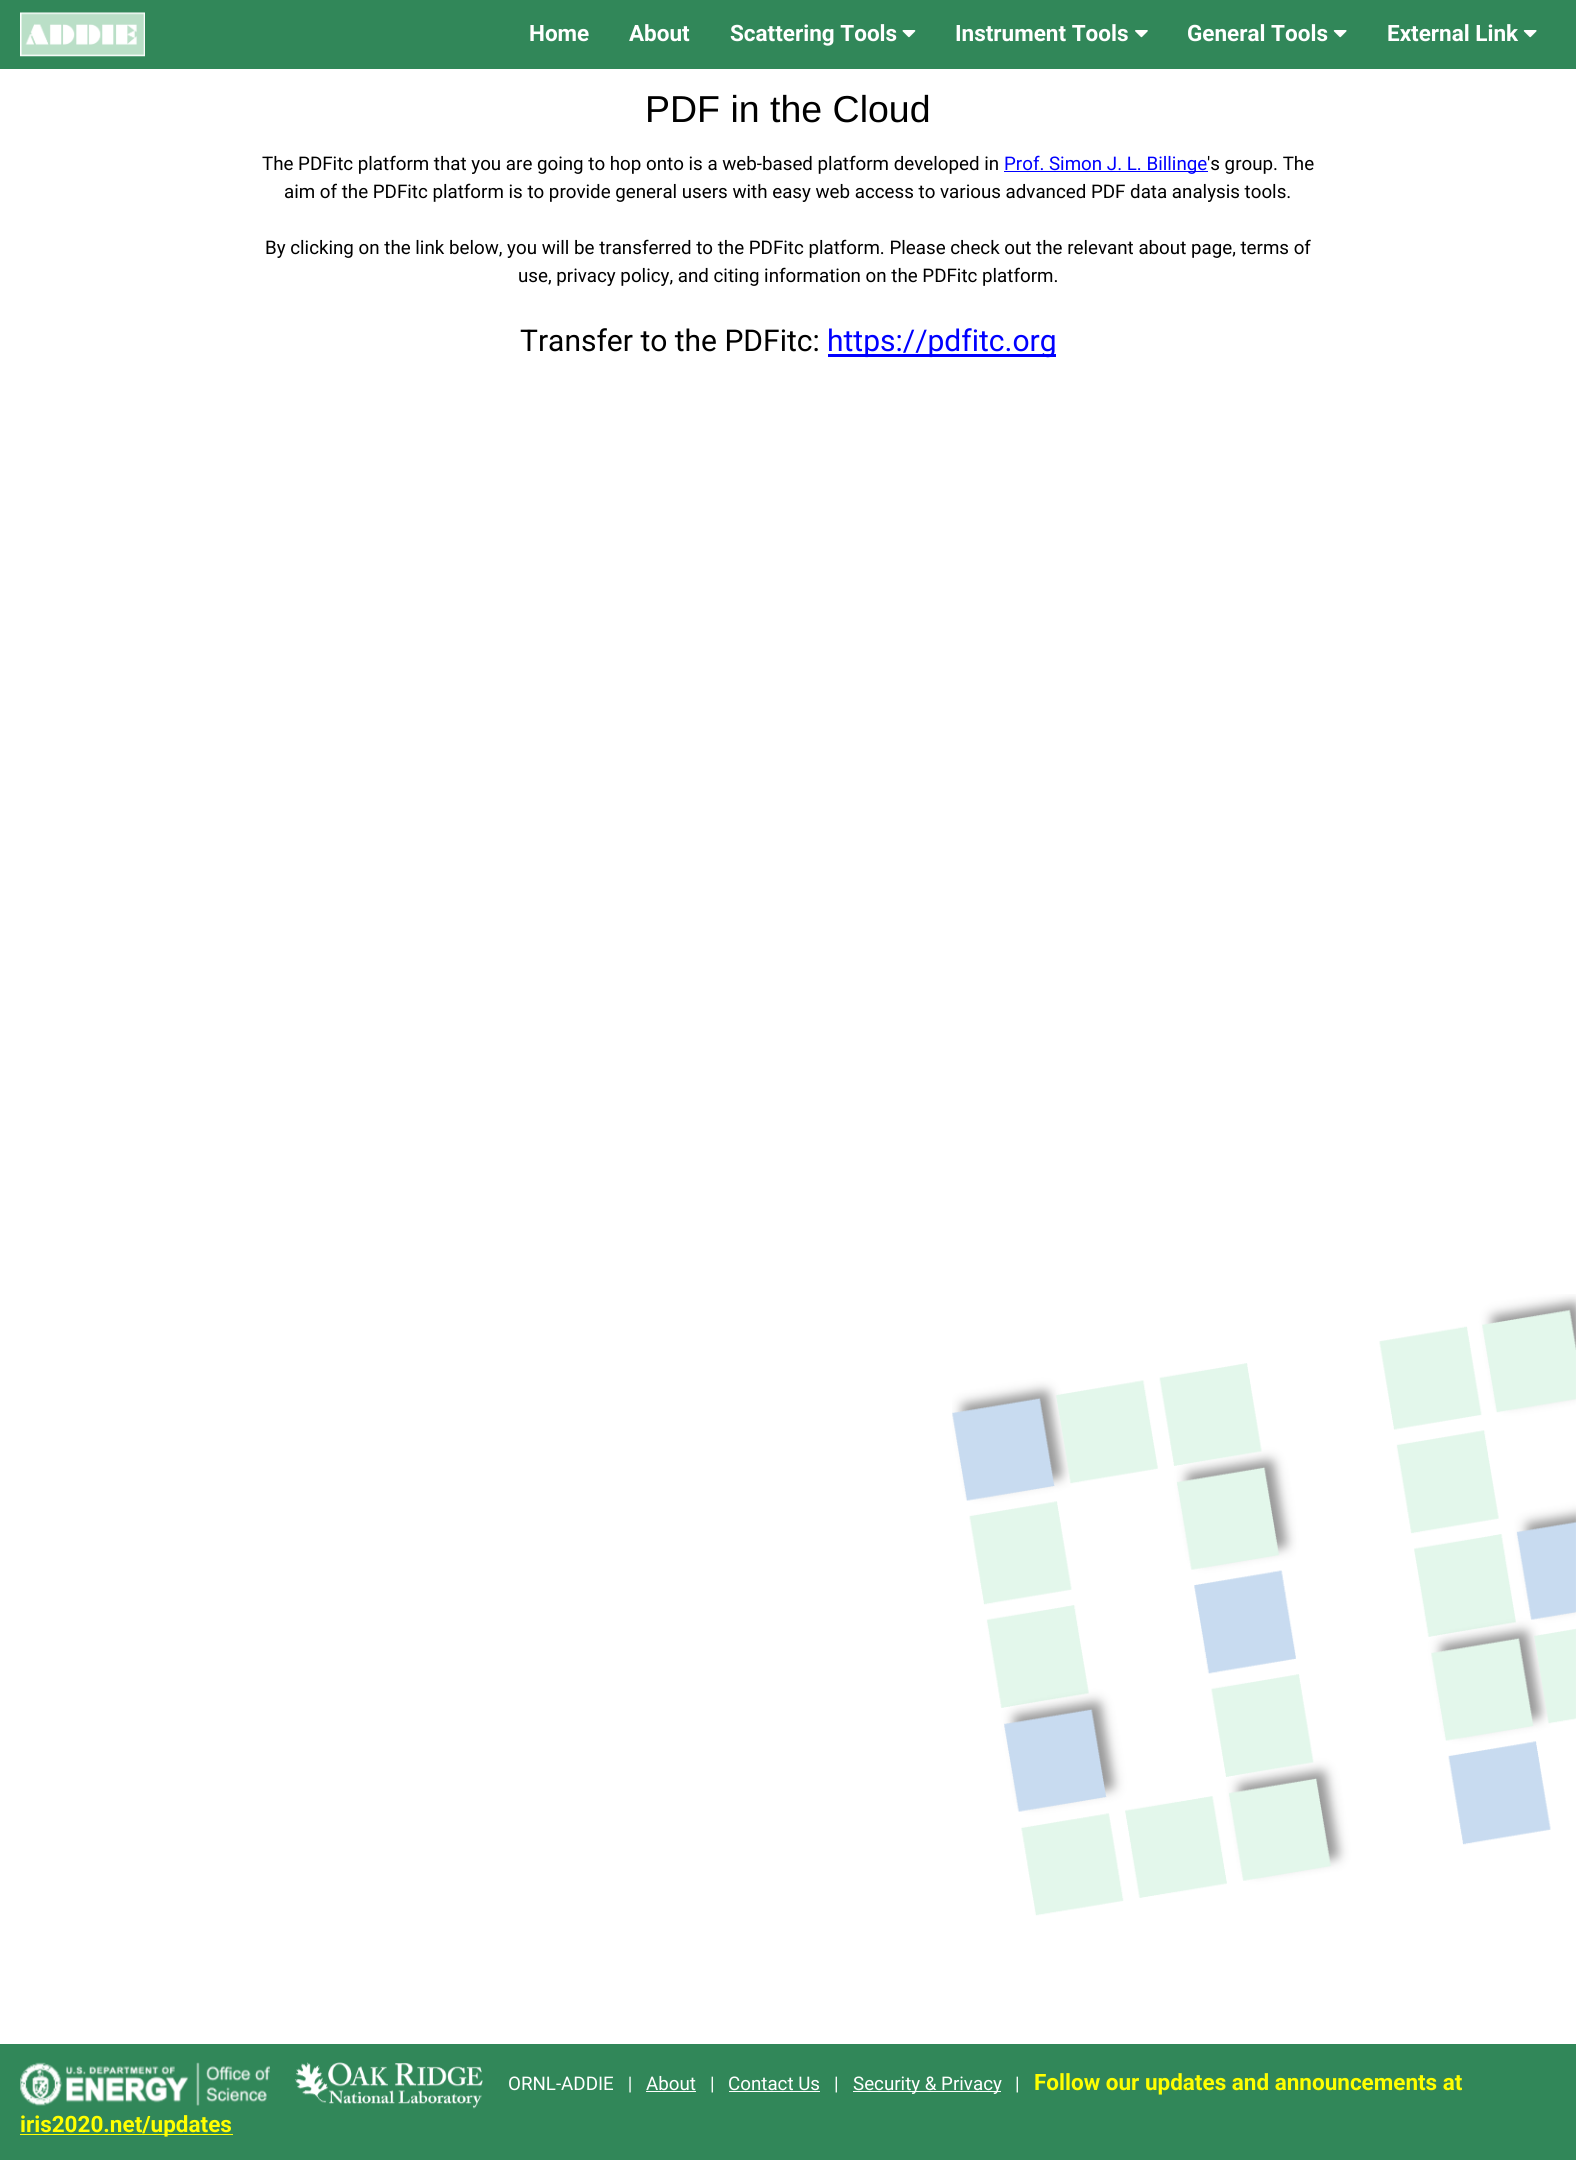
import math
import cairo

surface = cairo.ImageSurface(cairo.FORMAT_RGB24, 1576, 2160)
ctx = cairo.Context(surface)
options = cairo.FontOptions()
options.set_hint_metrics(cairo.HINT_METRICS_OFF)
options.set_hint_style(cairo.HINT_STYLE_NONE)
ctx.set_font_options(options)
ctx.set_miter_limit(4)


def picture(path, x, y, w, h):
    ctx.save()
    ctx.set_source_surface(cairo.ImageSurface.create_from_png(path), x, y)
    ctx.rectangle(x, y, w, h)
    ctx.fill()
    ctx.restore()


ctx.set_source_rgb(1, 1, 1)
ctx.paint()
picture("img1.png", 952, 1294, 624, 622)
ctx.set_source_rgb(0.192, 0.529, 0.349)
ctx.rectangle(0, 0, 1576, 69)
ctx.fill()
picture("img2.png", 20, 12, 125, 45)
ctx.select_font_face("Roboto", cairo.FONT_SLANT_NORMAL, cairo.FONT_WEIGHT_BOLD)
ctx.set_font_size(22.5)
ctx.set_source_rgb(1, 1, 1)
ctx.move_to(529, 41)
ctx.show_text("Home")
ctx.move_to(629, 41)
ctx.show_text("About")
ctx.move_to(730, 41)
ctx.show_text("Scattering Tools")
picture("img3.png", 902, 30, 14, 8)
ctx.move_to(955, 41)
ctx.show_text("Instrument Tools")
picture("img4.png", 1135, 30, 13, 8)
ctx.move_to(1187, 41)
ctx.show_text("General Tools")
picture("img5.png", 1333, 30, 14, 8)
ctx.move_to(1387, 41)
ctx.show_text("External Link")
picture("img5.png", 1523, 30, 14, 8)
ctx.select_font_face("Liberation Sans")
ctx.set_font_size(37.5)
ctx.set_source_rgb(0, 0, 0)
ctx.move_to(645, 122)
ctx.show_text("PDF in the Cloud")
ctx.select_font_face("Roboto")
ctx.set_font_size(18.75)
ctx.move_to(262, 170)
ctx.show_text("The PDFitc platform that you are going to hop onto is a web-based platform developed in")
ctx.set_source_rgb(0, 0, 1)
ctx.rectangle(1004, 171, 204, 1)
ctx.fill()
ctx.move_to(1004, 170)
ctx.show_text("Prof. Simon J. L. Billinge")
ctx.set_source_rgb(0, 0, 0)
ctx.move_to(1207, 170)
ctx.show_text("'s group. The")
ctx.move_to(284, 198)
ctx.show_text("aim of the PDFitc platform is to provide general users with easy web access to various advanced PDF data analysis tools.")
ctx.move_to(265, 254)
ctx.show_text("By clicking on the link below, you will be transferred to the PDFitc platform. Please check out the relevant about page, terms of")
ctx.move_to(518, 282)
ctx.show_text("use, privacy policy, and citing information on the PDFitc platform.")
ctx.set_font_size(30)
ctx.move_to(520, 351)
ctx.show_text("Transfer to the PDFitc:")
ctx.set_source_rgb(0, 0, 1)
ctx.rectangle(828, 354, 228, 3)
ctx.fill()
ctx.move_to(827, 351)
ctx.show_text("https://pdfitc.org")
ctx.set_source_rgb(0.192, 0.529, 0.349)
ctx.rectangle(0, 2044, 1576, 116)
ctx.fill()
picture("img6.png", 20, 2062, 250, 44)
picture("img7.png", 295, 2062, 188, 47)
ctx.set_font_size(18.75)
ctx.set_source_rgb(1, 1, 1)
ctx.move_to(508, 2090)
ctx.show_text("ORNL-ADDIE   |")
ctx.move_to(646, 2090)
ctx.show_text("About")
ctx.rectangle(646, 2091, 50, 1)
ctx.fill()
ctx.move_to(710, 2090)
ctx.show_text("|")
ctx.move_to(728, 2090)
ctx.show_text("Contact Us")
ctx.rectangle(729, 2091, 91, 1)
ctx.fill()
ctx.move_to(834, 2090)
ctx.show_text("|")
ctx.rectangle(853, 2091, 148, 1)
ctx.fill()
ctx.move_to(853, 2090)
ctx.show_text("Security & Privacy")
ctx.move_to(1015, 2090)
ctx.show_text("|")
ctx.select_font_face("Roboto", cairo.FONT_SLANT_NORMAL, cairo.FONT_WEIGHT_BOLD)
ctx.set_font_size(22.5)
ctx.set_source_rgb(1, 1, 0)
ctx.move_to(1034, 2090)
ctx.show_text("Follow our updates and announcements at")
ctx.rectangle(20, 2134, 213, 1)
ctx.fill()
ctx.move_to(20, 2132)
ctx.show_text("iris2020.net/updates")
surface.write_to_png("page.png")
